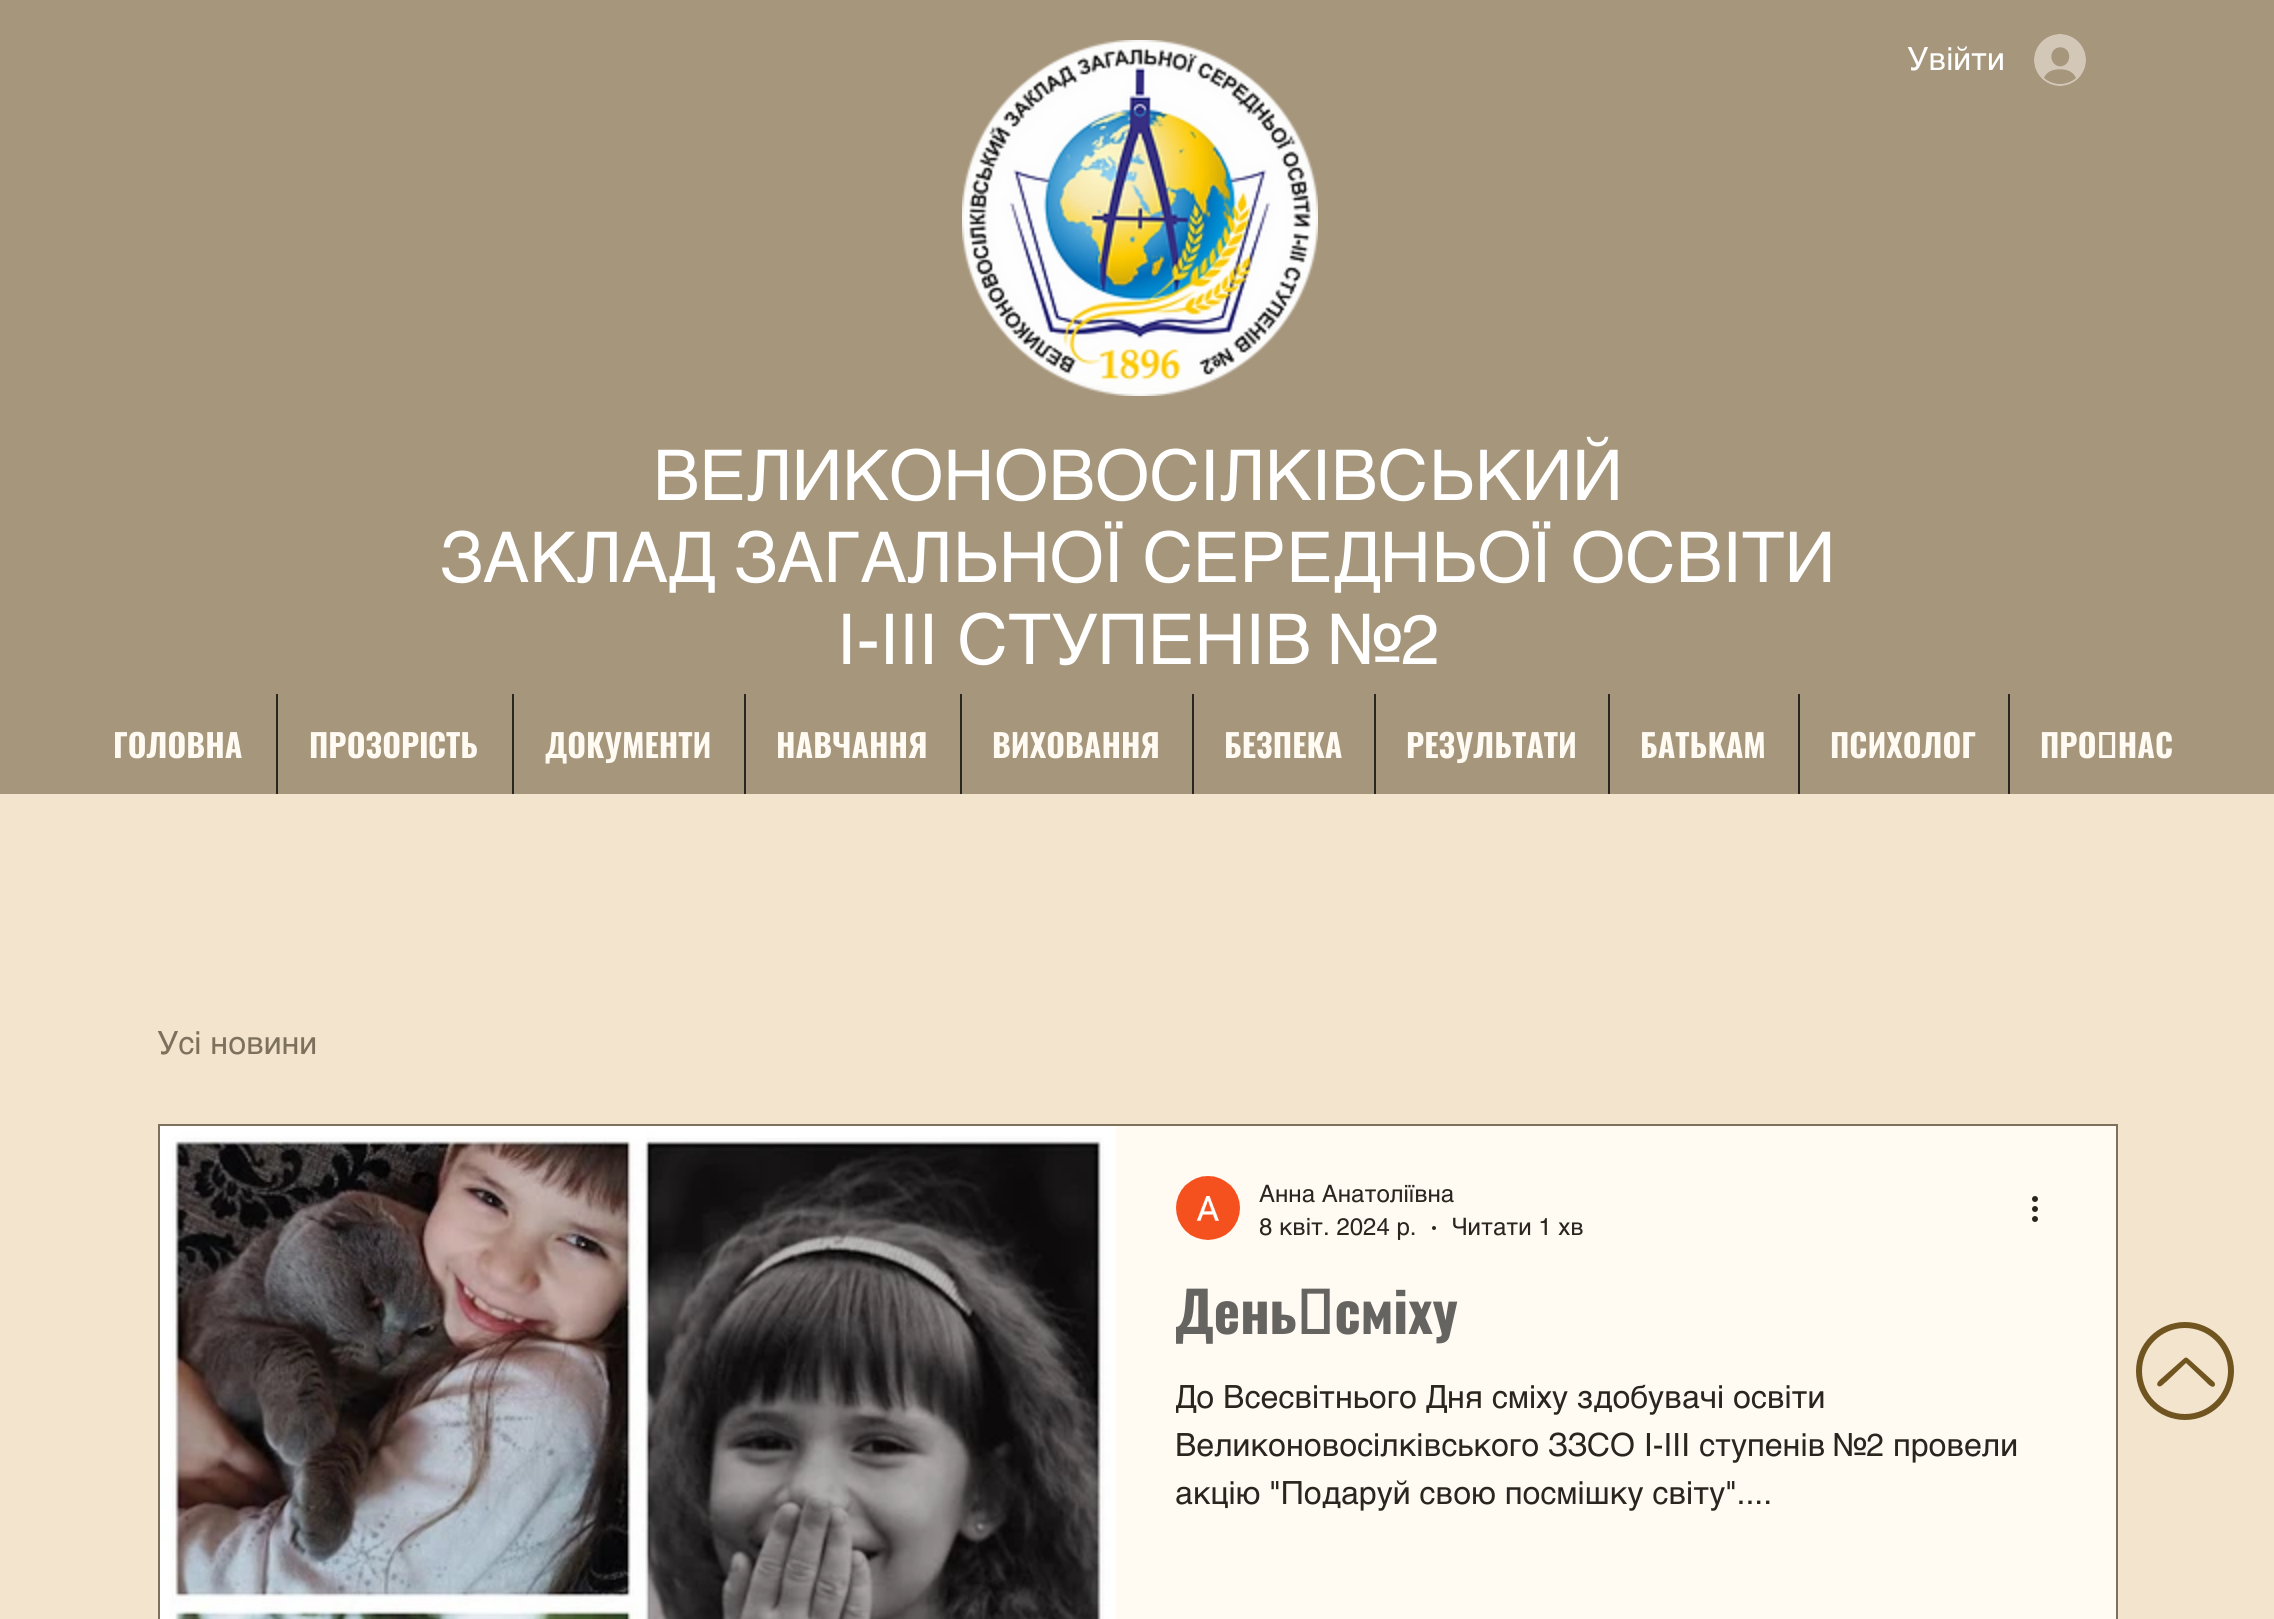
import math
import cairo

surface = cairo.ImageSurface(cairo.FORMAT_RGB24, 2274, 1619)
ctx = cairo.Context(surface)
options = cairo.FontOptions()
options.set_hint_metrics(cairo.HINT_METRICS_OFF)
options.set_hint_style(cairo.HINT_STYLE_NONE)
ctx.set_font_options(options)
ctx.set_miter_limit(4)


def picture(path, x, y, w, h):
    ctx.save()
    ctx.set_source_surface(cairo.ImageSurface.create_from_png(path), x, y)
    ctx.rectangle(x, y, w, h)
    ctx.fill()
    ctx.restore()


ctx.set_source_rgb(0.651, 0.588, 0.486)
ctx.paint()
picture("img1.png", 962, 40, 356, 356)
ctx.select_font_face("helvetica")
ctx.set_font_size(32)
ctx.set_source_rgb(1, 1, 1)
ctx.move_to(1907, 70)
ctx.show_text("Увійти")
picture("img2.png", 2034, 34, 52, 52)
ctx.set_font_size(70)
ctx.move_to(653, 500)
ctx.show_text("ВЕЛИКОНОВОСІЛКІВСЬКИЙ")
ctx.move_to(440, 582)
ctx.show_text("ЗАКЛАД ЗАГАЛЬНОЇ СЕРЕДНЬОЇ ОСВІТИ")
ctx.move_to(837, 664)
ctx.show_text("І-ІІІ СТУПЕНІВ №2")
ctx.select_font_face("Oswald", cairo.FONT_SLANT_NORMAL, cairo.FONT_WEIGHT_BOLD)
ctx.set_font_size(32)
ctx.set_source_rgb(1, 0.98, 0.949)
ctx.move_to(113, 758)
ctx.show_text("ГОЛОВНА")
ctx.set_source_rgb(0.161, 0.145, 0.122)
ctx.rectangle(276, 694, 2, 100)
ctx.fill()
ctx.set_source_rgb(1, 0.98, 0.949)
ctx.move_to(309, 758)
ctx.show_text("ПРОЗОРІСТЬ")
ctx.set_source_rgb(0.161, 0.145, 0.122)
ctx.rectangle(512, 694, 2, 100)
ctx.fill()
ctx.set_source_rgb(1, 0.98, 0.949)
ctx.move_to(545, 758)
ctx.show_text("ДОКУМЕНТИ")
ctx.set_source_rgb(0.161, 0.145, 0.122)
ctx.rectangle(744, 694, 2, 100)
ctx.fill()
ctx.set_source_rgb(1, 0.98, 0.949)
ctx.move_to(776, 758)
ctx.show_text("НАВЧАННЯ")
ctx.set_source_rgb(0.161, 0.145, 0.122)
ctx.rectangle(960, 694, 2, 100)
ctx.fill()
ctx.set_source_rgb(1, 0.98, 0.949)
ctx.move_to(992, 758)
ctx.show_text("ВИХОВАННЯ")
ctx.set_source_rgb(0.161, 0.145, 0.122)
ctx.rectangle(1192, 694, 2, 100)
ctx.fill()
ctx.set_source_rgb(1, 0.98, 0.949)
ctx.move_to(1224, 758)
ctx.show_text("БЕЗПЕКА")
ctx.set_source_rgb(0.161, 0.145, 0.122)
ctx.rectangle(1374, 694, 2, 100)
ctx.fill()
ctx.set_source_rgb(1, 0.98, 0.949)
ctx.move_to(1406, 758)
ctx.show_text("РЕЗУЛЬТАТИ")
ctx.set_source_rgb(0.161, 0.145, 0.122)
ctx.rectangle(1608, 694, 2, 100)
ctx.fill()
ctx.set_source_rgb(1, 0.98, 0.949)
ctx.move_to(1640, 758)
ctx.show_text("БАТЬКАМ")
ctx.set_source_rgb(0.161, 0.145, 0.122)
ctx.rectangle(1798, 694, 2, 100)
ctx.fill()
ctx.set_source_rgb(1, 0.98, 0.949)
ctx.move_to(1830, 758)
ctx.show_text("ПСИХОЛОГ")
ctx.set_source_rgb(0.161, 0.145, 0.122)
ctx.rectangle(2008, 694, 2, 100)
ctx.fill()
ctx.set_source_rgb(1, 0.98, 0.949)
ctx.move_to(2040, 758)
ctx.show_text("ПРО НАС")
ctx.set_source_rgb(0.949, 0.894, 0.804)
ctx.rectangle(0, 794, 2274, 825)
ctx.fill()
ctx.select_font_face("helvetica")
ctx.set_source_rgb(0.49, 0.443, 0.365)
ctx.move_to(157, 1054)
ctx.show_text("Усі новини")
ctx.rectangle(159, 1125, 1958, 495)
ctx.stroke()
picture("img3.png", 160, 1126, 956, 493)
ctx.set_source_rgb(1, 0.98, 0.949)
ctx.rectangle(1116, 1126, 1000, 493)
ctx.fill()
picture("img4.png", 1176, 1176, 64, 64)
ctx.set_font_size(24)
ctx.set_source_rgb(0.161, 0.145, 0.122)
ctx.move_to(1259, 1202)
ctx.show_text("Анна Анатоліївна")
ctx.move_to(1259, 1235)
ctx.show_text("8 квіт. 2024 р.")
ctx.new_path()
ctx.arc(1434, 1228, 2, 0, 2 * math.pi)
ctx.fill()
ctx.move_to(1452, 1235)
ctx.show_text("Читати 1 хв")
picture("img5.png", 2032, 1196, 6, 26)
ctx.select_font_face("Oswald", cairo.FONT_SLANT_NORMAL, cairo.FONT_WEIGHT_BOLD)
ctx.set_font_size(56)
ctx.set_source_rgb(0.4, 0.392, 0.38)
ctx.move_to(1175, 1334)
ctx.show_text("День сміху")
ctx.save()
ctx.rectangle(1176, 1374, 880, 144)
ctx.clip()
ctx.select_font_face("helvetica")
ctx.set_font_size(32)
ctx.set_source_rgb(0.161, 0.145, 0.122)
ctx.move_to(1175, 1408)
ctx.show_text("До Всесвітнього Дня сміху здобувачі освіти")
ctx.restore()
ctx.select_font_face("helvetica")
ctx.set_font_size(32)
ctx.set_source_rgb(0.161, 0.145, 0.122)
ctx.move_to(1175, 1456)
ctx.show_text("Великоновосілківського ЗЗСО І-ІІІ ступенів №2 провели")
ctx.move_to(1175, 1504)
ctx.show_text("акцію \"Подаруй свою посмішку світу\"....")
ctx.new_path()
ctx.arc(2185, 1371, 46, 0, 2 * math.pi)
ctx.set_source_rgb(0.439, 0.333, 0.125)
ctx.set_line_width(6)
ctx.stroke()
ctx.new_path()
ctx.move_to(2214, 1382)
ctx.line_to(2192, 1362)
ctx.curve_to(2185, 1356, 2187, 1356, 2180, 1362)
ctx.line_to(2162, 1378)
ctx.curve_to(2161, 1379, 2155, 1383, 2158, 1386)
ctx.curve_to(2161, 1388, 2164, 1383, 2166, 1382)
ctx.line_to(2186, 1363)
ctx.line_to(2206, 1382)
ctx.curve_to(2207, 1383, 2213, 1390, 2215, 1385)
ctx.curve_to(2215, 1384, 2215, 1383, 2214, 1382)
ctx.close_path()
ctx.fill()
surface.write_to_png("page.png")
